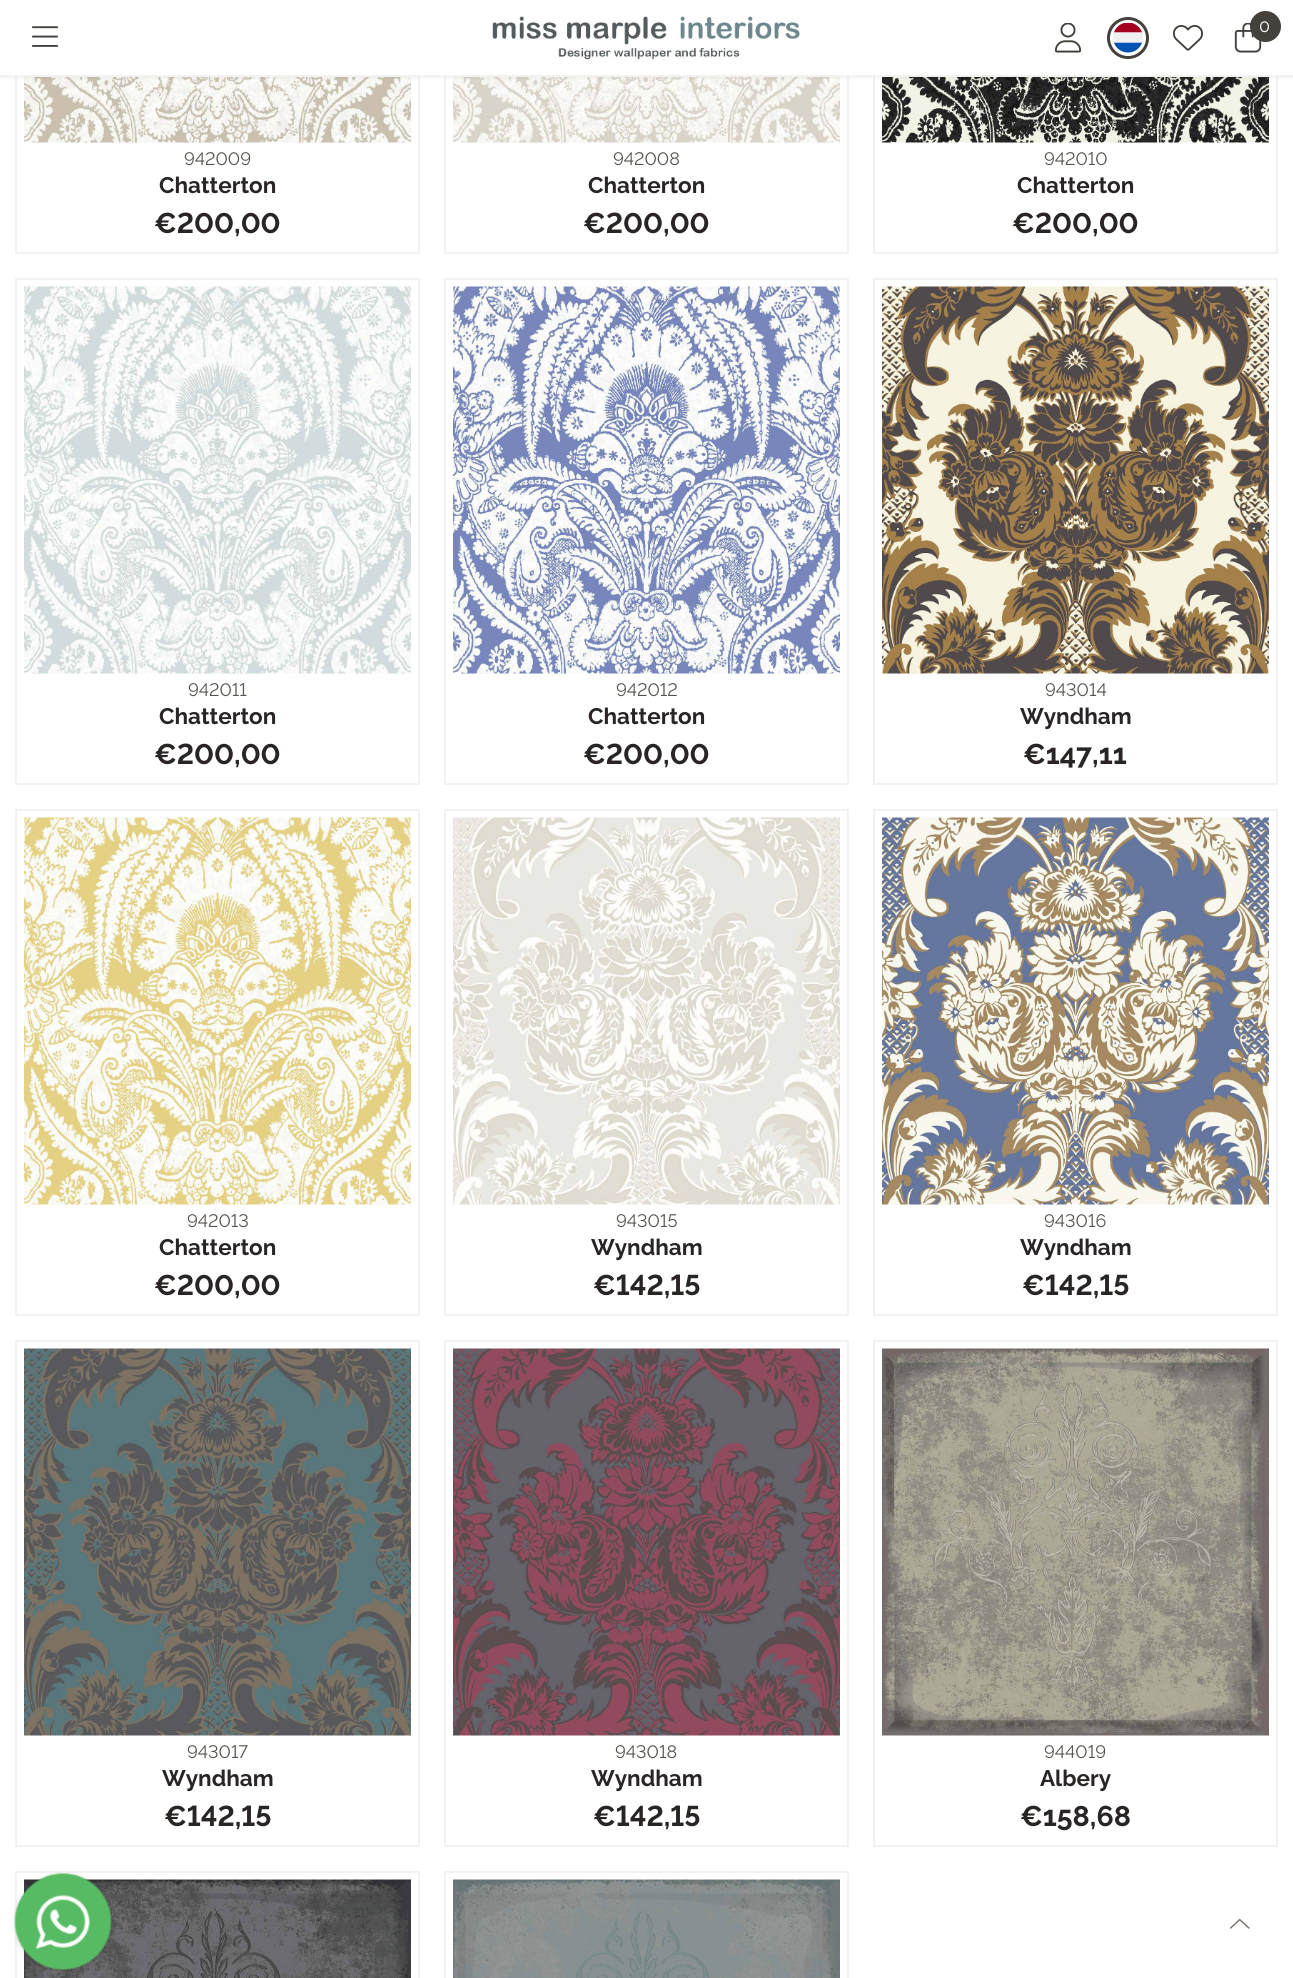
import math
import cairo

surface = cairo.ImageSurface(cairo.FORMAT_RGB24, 1293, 1978)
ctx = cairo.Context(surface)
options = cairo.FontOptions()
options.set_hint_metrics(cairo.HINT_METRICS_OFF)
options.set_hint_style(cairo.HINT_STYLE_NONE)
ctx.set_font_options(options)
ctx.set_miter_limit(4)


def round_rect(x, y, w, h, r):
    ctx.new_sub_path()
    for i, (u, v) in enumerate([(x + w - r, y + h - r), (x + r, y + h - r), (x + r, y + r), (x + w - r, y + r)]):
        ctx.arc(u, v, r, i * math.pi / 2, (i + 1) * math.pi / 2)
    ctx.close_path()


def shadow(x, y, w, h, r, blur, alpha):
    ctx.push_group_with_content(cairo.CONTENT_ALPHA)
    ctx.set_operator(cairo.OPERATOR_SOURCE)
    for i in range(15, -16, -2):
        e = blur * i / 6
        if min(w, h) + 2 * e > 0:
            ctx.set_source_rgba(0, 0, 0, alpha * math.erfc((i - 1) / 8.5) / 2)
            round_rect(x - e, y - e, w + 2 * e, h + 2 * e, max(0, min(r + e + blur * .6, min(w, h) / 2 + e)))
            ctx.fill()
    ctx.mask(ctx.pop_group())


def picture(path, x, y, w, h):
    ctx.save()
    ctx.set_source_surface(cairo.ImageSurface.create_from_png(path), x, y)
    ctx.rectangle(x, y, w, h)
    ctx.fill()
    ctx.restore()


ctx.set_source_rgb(1, 1, 1)
ctx.paint()
ctx.rectangle(16, -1, 403, 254)
ctx.set_source_rgb(0.949, 0.949, 0.949)
ctx.stroke()
picture("img7.png", 24, 77, 387, 66)
ctx.rectangle(445, -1, 403, 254)
ctx.stroke()
picture("img8.png", 453, 77, 387, 66)
ctx.rectangle(874, -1, 403, 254)
ctx.stroke()
picture("img9.png", 882, 77, 387, 66)
ctx.set_source_rgb(0, 0, 0)
shadow(0, 2, 1293, 76, 0, 1.5, 0.05)
ctx.set_source_rgb(1, 1, 1)
ctx.rectangle(0, 0, 1293, 75)
ctx.fill()
ctx.set_source_rgb(0.949, 0.949, 0.949)
ctx.rectangle(0, 75, 1293, 2)
ctx.fill()
picture("img1.png", 31, 26, 28, 21)
picture("img2.png", 492, 16, 308, 44)
picture("img3.png", 1054, 23, 28, 30)
ctx.arc(1128, 38, 19.5, 0, 2 * math.pi)
ctx.set_source_rgb(0.267, 0.251, 0.235)
ctx.set_line_width(3)
ctx.stroke()
picture("img4.png", 1113, 23, 30, 30)
picture("img5.png", 1173, 25, 30, 26)
picture("img6.png", 1234, 23, 28, 30)
ctx.arc(1265.5, 26.5, 15.5, 0, 2 * math.pi)
ctx.fill()
ctx.select_font_face("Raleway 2 Thin")
ctx.set_font_size(18)
ctx.set_source_rgb(1, 1, 1)
ctx.move_to(1259, 32)
ctx.show_text("0")
ctx.select_font_face("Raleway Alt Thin")
ctx.set_source_rgb(0.341, 0.325, 0.306)
ctx.move_to(184, 165)
ctx.show_text("942009")
ctx.select_font_face("Raleway Thin")
ctx.set_font_size(22.5)
ctx.set_source_rgb(0.161, 0.145, 0.141)
ctx.move_to(159, 193)
ctx.show_text("Chatterton")
ctx.select_font_face("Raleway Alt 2 Thin")
ctx.set_font_size(28.5)
ctx.move_to(154, 233)
ctx.show_text("€200,00")
ctx.select_font_face("Raleway Alt Thin")
ctx.set_font_size(18)
ctx.set_source_rgb(0.341, 0.325, 0.306)
ctx.move_to(613, 165)
ctx.show_text("942008")
ctx.select_font_face("Raleway Thin")
ctx.set_font_size(22.5)
ctx.set_source_rgb(0.161, 0.145, 0.141)
ctx.move_to(588, 193)
ctx.show_text("Chatterton")
ctx.select_font_face("Raleway Alt 2 Thin")
ctx.set_font_size(28.5)
ctx.move_to(583, 233)
ctx.show_text("€200,00")
ctx.select_font_face("Raleway Alt Thin")
ctx.set_font_size(18)
ctx.set_source_rgb(0.341, 0.325, 0.306)
ctx.move_to(1044, 165)
ctx.show_text("942010")
ctx.select_font_face("Raleway Thin")
ctx.set_font_size(22.5)
ctx.set_source_rgb(0.161, 0.145, 0.141)
ctx.move_to(1017, 193)
ctx.show_text("Chatterton")
ctx.select_font_face("Raleway Alt 2 Thin")
ctx.set_font_size(28.5)
ctx.move_to(1012, 233)
ctx.show_text("€200,00")
ctx.rectangle(16, 279, 403, 505)
ctx.set_source_rgb(0.949, 0.949, 0.949)
ctx.set_line_width(2)
ctx.stroke()
picture("img10.png", 24, 286, 387, 388)
ctx.select_font_face("Raleway Alt Thin")
ctx.set_font_size(18)
ctx.set_source_rgb(0.341, 0.325, 0.306)
ctx.move_to(188, 696)
ctx.show_text("942011")
ctx.select_font_face("Raleway Thin")
ctx.set_font_size(22.5)
ctx.set_source_rgb(0.161, 0.145, 0.141)
ctx.move_to(159, 724)
ctx.show_text("Chatterton")
ctx.select_font_face("Raleway Alt 2 Thin")
ctx.set_font_size(28.5)
ctx.move_to(154, 764)
ctx.show_text("€200,00")
ctx.rectangle(445, 279, 403, 505)
ctx.set_source_rgb(0.949, 0.949, 0.949)
ctx.stroke()
picture("img11.png", 453, 286, 387, 388)
ctx.select_font_face("Raleway Alt Thin")
ctx.set_font_size(18)
ctx.set_source_rgb(0.341, 0.325, 0.306)
ctx.move_to(616, 696)
ctx.show_text("942012")
ctx.select_font_face("Raleway Thin")
ctx.set_font_size(22.5)
ctx.set_source_rgb(0.161, 0.145, 0.141)
ctx.move_to(588, 724)
ctx.show_text("Chatterton")
ctx.select_font_face("Raleway Alt 2 Thin")
ctx.set_font_size(28.5)
ctx.move_to(583, 764)
ctx.show_text("€200,00")
ctx.rectangle(874, 279, 403, 505)
ctx.set_source_rgb(0.949, 0.949, 0.949)
ctx.stroke()
picture("img12.png", 882, 286, 387, 388)
ctx.select_font_face("Raleway Alt Thin")
ctx.set_font_size(18)
ctx.set_source_rgb(0.341, 0.325, 0.306)
ctx.move_to(1045, 696)
ctx.show_text("943014")
ctx.select_font_face("Raleway Thin")
ctx.set_font_size(22.5)
ctx.set_source_rgb(0.161, 0.145, 0.141)
ctx.move_to(1020, 724)
ctx.show_text("Wyndham")
ctx.set_font_size(28.5)
ctx.move_to(1023, 764)
ctx.show_text("€147,11")
ctx.rectangle(16, 810, 403, 505)
ctx.set_source_rgb(0.949, 0.949, 0.949)
ctx.stroke()
picture("img13.png", 24, 817, 387, 388)
ctx.select_font_face("Raleway Alt Thin")
ctx.set_font_size(18)
ctx.set_source_rgb(0.341, 0.325, 0.306)
ctx.move_to(187, 1227)
ctx.show_text("942013")
ctx.select_font_face("Raleway Thin")
ctx.set_font_size(22.5)
ctx.set_source_rgb(0.161, 0.145, 0.141)
ctx.move_to(159, 1255)
ctx.show_text("Chatterton")
ctx.select_font_face("Raleway Alt 2 Thin")
ctx.set_font_size(28.5)
ctx.move_to(154, 1295)
ctx.show_text("€200,00")
ctx.rectangle(445, 810, 403, 505)
ctx.set_source_rgb(0.949, 0.949, 0.949)
ctx.stroke()
picture("img14.png", 453, 817, 387, 388)
ctx.select_font_face("Raleway Alt Thin")
ctx.set_font_size(18)
ctx.set_source_rgb(0.341, 0.325, 0.306)
ctx.move_to(616, 1227)
ctx.show_text("943015")
ctx.select_font_face("Raleway Thin")
ctx.set_font_size(22.5)
ctx.set_source_rgb(0.161, 0.145, 0.141)
ctx.move_to(591, 1255)
ctx.show_text("Wyndham")
ctx.select_font_face("Raleway Alt 2 Thin")
ctx.set_font_size(28.5)
ctx.move_to(593, 1295)
ctx.show_text("€142,15")
ctx.rectangle(874, 810, 403, 505)
ctx.set_source_rgb(0.949, 0.949, 0.949)
ctx.stroke()
picture("img15.png", 882, 817, 387, 388)
ctx.select_font_face("Raleway Alt Thin")
ctx.set_font_size(18)
ctx.set_source_rgb(0.341, 0.325, 0.306)
ctx.move_to(1044, 1227)
ctx.show_text("943016")
ctx.select_font_face("Raleway Thin")
ctx.set_font_size(22.5)
ctx.set_source_rgb(0.161, 0.145, 0.141)
ctx.move_to(1020, 1255)
ctx.show_text("Wyndham")
ctx.select_font_face("Raleway Alt 2 Thin")
ctx.set_font_size(28.5)
ctx.move_to(1022, 1295)
ctx.show_text("€142,15")
ctx.rectangle(16, 1341, 403, 505)
ctx.set_source_rgb(0.949, 0.949, 0.949)
ctx.stroke()
picture("img16.png", 24, 1348, 387, 388)
ctx.select_font_face("Raleway Alt Thin")
ctx.set_font_size(18)
ctx.set_source_rgb(0.341, 0.325, 0.306)
ctx.move_to(187, 1758)
ctx.show_text("943017")
ctx.select_font_face("Raleway Thin")
ctx.set_font_size(22.5)
ctx.set_source_rgb(0.161, 0.145, 0.141)
ctx.move_to(162, 1786)
ctx.show_text("Wyndham")
ctx.select_font_face("Raleway Alt 2 Thin")
ctx.set_font_size(28.5)
ctx.move_to(164, 1826)
ctx.show_text("€142,15")
ctx.rectangle(445, 1341, 403, 505)
ctx.set_source_rgb(0.949, 0.949, 0.949)
ctx.stroke()
picture("img17.png", 453, 1348, 387, 388)
ctx.select_font_face("Raleway Alt Thin")
ctx.set_font_size(18)
ctx.set_source_rgb(0.341, 0.325, 0.306)
ctx.move_to(615, 1758)
ctx.show_text("943018")
ctx.select_font_face("Raleway Thin")
ctx.set_font_size(22.5)
ctx.set_source_rgb(0.161, 0.145, 0.141)
ctx.move_to(591, 1786)
ctx.show_text("Wyndham")
ctx.select_font_face("Raleway Alt 2 Thin")
ctx.set_font_size(28.5)
ctx.move_to(593, 1826)
ctx.show_text("€142,15")
ctx.rectangle(874, 1341, 403, 505)
ctx.set_source_rgb(0.949, 0.949, 0.949)
ctx.stroke()
picture("img18.png", 882, 1348, 387, 388)
ctx.select_font_face("Raleway Alt Thin")
ctx.set_font_size(18)
ctx.set_source_rgb(0.341, 0.325, 0.306)
ctx.move_to(1044, 1758)
ctx.show_text("944019")
ctx.select_font_face("Raleway Thin")
ctx.set_font_size(22.5)
ctx.set_source_rgb(0.161, 0.145, 0.141)
ctx.move_to(1040, 1786)
ctx.show_text("Albery")
ctx.set_font_size(28.5)
ctx.move_to(1020, 1826)
ctx.show_text("€158,68")
ctx.rectangle(16, 1872, 403, 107)
ctx.set_source_rgb(0.949, 0.949, 0.949)
ctx.stroke()
picture("img19.png", 24, 1879, 387, 99)
ctx.rectangle(445, 1872, 403, 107)
ctx.stroke()
picture("img20.png", 453, 1879, 387, 99)
picture("img21.png", 14, 1872, 98, 99)
picture("img22.png", 1230, 1918, 20, 11)
surface.write_to_png("page.png")
